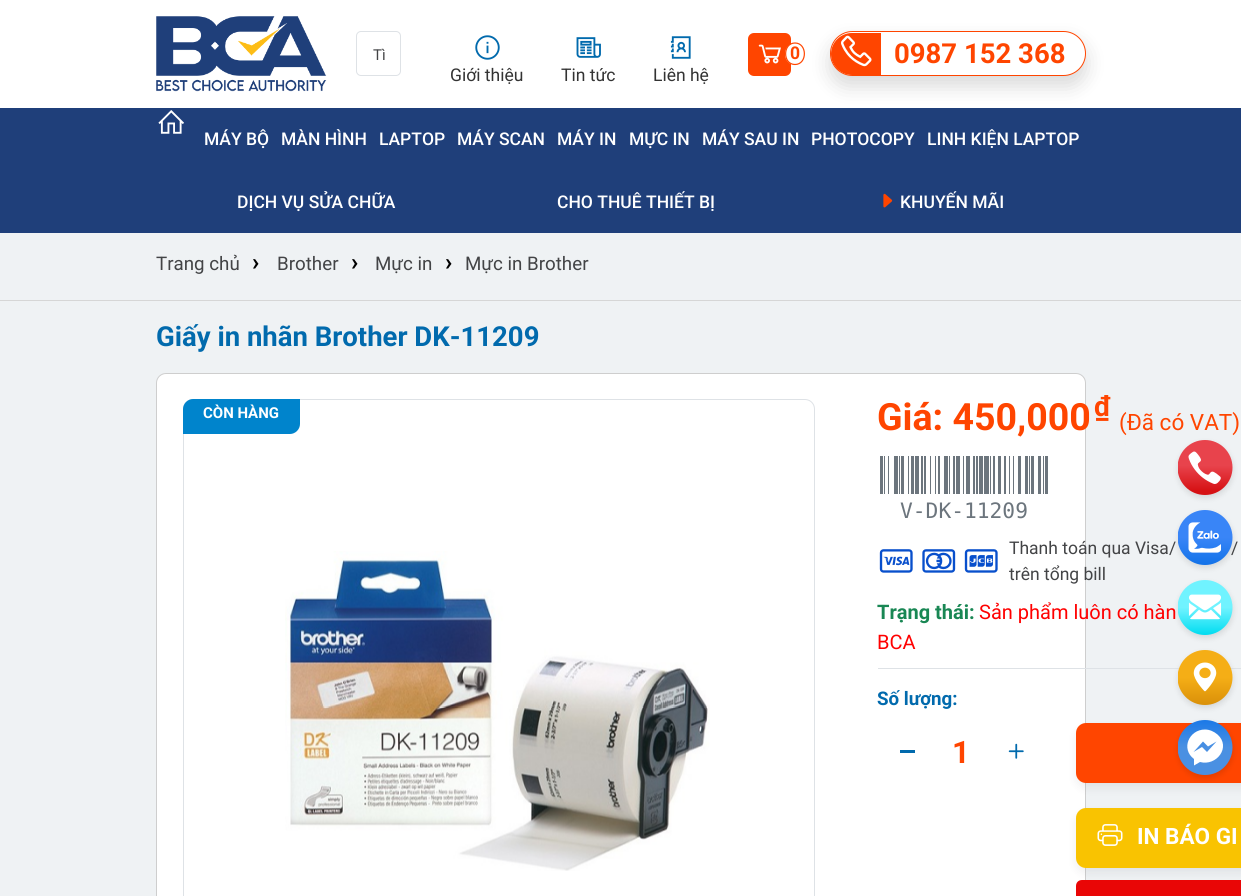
import math
import cairo

surface = cairo.ImageSurface(cairo.FORMAT_RGB24, 1241, 896)
ctx = cairo.Context(surface)
options = cairo.FontOptions()
options.set_hint_metrics(cairo.HINT_METRICS_OFF)
options.set_hint_style(cairo.HINT_STYLE_NONE)
ctx.set_font_options(options)
ctx.set_miter_limit(4)


def round_rect(x, y, w, h, r):
    ctx.new_sub_path()
    for i, (u, v) in enumerate([(x + w - r, y + h - r), (x + r, y + h - r), (x + r, y + r), (x + w - r, y + r)]):
        ctx.arc(u, v, r, i * math.pi / 2, (i + 1) * math.pi / 2)
    ctx.close_path()


def shadow(x, y, w, h, r, blur, alpha):
    ctx.push_group_with_content(cairo.CONTENT_ALPHA)
    ctx.set_operator(cairo.OPERATOR_SOURCE)
    for i in range(15, -16, -2):
        e = blur * i / 6
        if min(w, h) + 2 * e > 0:
            ctx.set_source_rgba(0, 0, 0, alpha * math.erfc((i - 1) / 8.5) / 2)
            round_rect(x - e, y - e, w + 2 * e, h + 2 * e, max(0, min(r + e + blur * .6, min(w, h) / 2 + e)))
            ctx.fill()
    ctx.mask(ctx.pop_group())


def picture(path, x, y, w, h):
    ctx.save()
    ctx.set_source_surface(cairo.ImageSurface.create_from_png(path), x, y)
    ctx.rectangle(x, y, w, h)
    ctx.fill()
    ctx.restore()


ctx.set_source_rgb(0.937, 0.949, 0.957)
ctx.paint()
ctx.set_source_rgb(1, 1, 1)
ctx.rectangle(0, 0, 1241, 108)
ctx.fill()
picture("img1.png", 156, 16, 171, 76)
round_rect(356.5, 31.5, 44, 44, 4.5)
ctx.set_source_rgb(0.871, 0.886, 0.902)
ctx.set_line_width(1)
ctx.stroke()
ctx.select_font_face("Roboto")
ctx.set_font_size(15)
ctx.set_source_rgb(0.263, 0.267, 0.275)
ctx.move_to(373, 60)
ctx.show_text("Tì")
ctx.set_source_rgb(1, 0.271, 0)
round_rect(749.5, 34.5, 40, 40, 4.5)
ctx.fill_preserve()
ctx.set_line_width(3)
ctx.stroke()
picture("img2.png", 758, 44, 23, 20)
ctx.set_source_rgb(0.122, 0.247, 0.478)
ctx.rectangle(0, 108, 1241, 125)
ctx.fill()
ctx.set_source_rgb(0, 0, 0)
shadow(830, 41, 256, 45, 22.5, 10, 0.15)
ctx.set_source_rgb(1, 1, 1)
ctx.new_path()
ctx.move_to(795, 43)
ctx.curve_to(800.5, 43, 805, 48, 805, 54)
ctx.curve_to(805, 60, 800.5, 65, 795, 65)
ctx.curve_to(789.5, 65, 785, 60, 785, 54)
ctx.curve_to(785, 48, 789.5, 43, 795, 43)
ctx.close_path()
ctx.fill()
ctx.new_path()
ctx.move_to(795, 43)
ctx.curve_to(807.5, 43, 807.5, 64.5, 795, 64.5)
ctx.curve_to(782.5, 64.5, 782.5, 43, 795, 43)
ctx.close_path()
ctx.set_source_rgb(1, 0.271, 0)
ctx.set_line_width(1.2)
ctx.stroke()
ctx.select_font_face("Roboto", cairo.FONT_SLANT_NORMAL, cairo.FONT_WEIGHT_BOLD)
ctx.set_font_size(17.5)
ctx.move_to(790, 59)
ctx.show_text("0")
picture("img3.png", 475, 35, 25, 25)
ctx.select_font_face("Roboto")
ctx.set_source_rgb(0.2, 0.2, 0.2)
ctx.move_to(450, 81)
ctx.show_text("Giới thiệu")
picture("img4.png", 576, 37, 25, 21)
ctx.move_to(561, 81)
ctx.show_text("Tin tức")
picture("img5.png", 670, 36, 21, 23)
ctx.move_to(653, 81)
ctx.show_text("Liên hệ")
ctx.set_source_rgb(1, 1, 1)
round_rect(830.5, 31.5, 255, 44, 22)
ctx.fill_preserve()
ctx.set_source_rgb(1, 0.271, 0)
ctx.set_line_width(1)
ctx.stroke()
ctx.new_path()
ctx.move_to(852, 33)
ctx.line_to(881, 33)
ctx.line_to(881, 75)
ctx.line_to(852, 75)
ctx.curve_to(840.5, 75, 831, 65.5, 831, 54)
ctx.curve_to(831, 42.5, 840.5, 33, 852, 33)
ctx.close_path()
ctx.fill()
picture("img6.png", 841, 35, 31, 32)
ctx.select_font_face("Roboto", cairo.FONT_SLANT_NORMAL, cairo.FONT_WEIGHT_BOLD)
ctx.set_font_size(27.5)
ctx.move_to(894, 63)
ctx.show_text("0987 152 368")
picture("img7.png", 158, 110, 26, 24)
ctx.select_font_face("Roboto Medium")
ctx.set_font_size(17.5)
ctx.set_source_rgb(1, 1, 1)
ctx.move_to(204, 145)
ctx.show_text("MÁY BỘ")
ctx.move_to(281, 145)
ctx.show_text("MÀN HÌNH")
ctx.move_to(379, 145)
ctx.show_text("LAPTOP")
ctx.move_to(457, 145)
ctx.show_text("MÁY SCAN")
ctx.move_to(557, 145)
ctx.show_text("MÁY IN")
ctx.move_to(629, 145)
ctx.show_text("MỰC IN")
ctx.move_to(702, 145)
ctx.show_text("MÁY SAU IN")
ctx.move_to(811, 145)
ctx.show_text("PHOTOCOPY")
ctx.move_to(927, 145)
ctx.show_text("LINH KIỆN LAPTOP")
ctx.move_to(237, 208)
ctx.show_text("DỊCH VỤ SỬA CHỮA")
ctx.move_to(557, 208)
ctx.show_text("CHO THUÊ THIẾT BỊ")
picture("img8.png", 883, 193, 10, 15)
ctx.move_to(900, 208)
ctx.show_text("KHUYẾN MÃI")
ctx.select_font_face("Roboto")
ctx.set_font_size(18.75)
ctx.set_source_rgb(0.263, 0.267, 0.275)
ctx.move_to(156, 270)
ctx.show_text("Trang chủ")
ctx.select_font_face("Roboto", cairo.FONT_SLANT_NORMAL, cairo.FONT_WEIGHT_BOLD)
ctx.set_font_size(24)
ctx.set_source_rgb(0, 0, 0)
ctx.move_to(252, 270)
ctx.show_text("›")
ctx.select_font_face("Roboto")
ctx.set_font_size(18.75)
ctx.set_source_rgb(0.263, 0.267, 0.275)
ctx.move_to(277, 270)
ctx.show_text("Brother")
ctx.select_font_face("Roboto", cairo.FONT_SLANT_NORMAL, cairo.FONT_WEIGHT_BOLD)
ctx.set_font_size(24)
ctx.set_source_rgb(0, 0, 0)
ctx.move_to(351, 270)
ctx.show_text("›")
ctx.select_font_face("Roboto")
ctx.set_font_size(18.75)
ctx.set_source_rgb(0.263, 0.267, 0.275)
ctx.move_to(375, 270)
ctx.show_text("Mực in")
ctx.select_font_face("Roboto", cairo.FONT_SLANT_NORMAL, cairo.FONT_WEIGHT_BOLD)
ctx.set_font_size(24)
ctx.set_source_rgb(0, 0, 0)
ctx.move_to(445, 270)
ctx.show_text("›")
ctx.select_font_face("Roboto")
ctx.set_font_size(18.75)
ctx.set_source_rgb(0.263, 0.267, 0.275)
ctx.move_to(465, 270)
ctx.show_text("Mực in Brother")
ctx.set_source_rgb(0.839, 0.839, 0.839)
ctx.rectangle(0, 300, 1241, 1)
ctx.fill()
ctx.select_font_face("Roboto", cairo.FONT_SLANT_NORMAL, cairo.FONT_WEIGHT_BOLD)
ctx.set_font_size(27.5)
ctx.set_source_rgb(0.004, 0.416, 0.678)
ctx.move_to(156, 346)
ctx.show_text("Giấy in nhãn Brother DK-11209")
ctx.set_source_rgb(1, 1, 1)
round_rect(156.5, 373.5, 929, 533, 9.5)
ctx.fill_preserve()
ctx.set_source_rgb(0.808, 0.808, 0.808)
ctx.stroke()
round_rect(183.5, 399.5, 631, 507, 9.5)
ctx.set_source_rgb(0.871, 0.886, 0.902)
ctx.stroke()
picture("img9.png", 285, 551, 425, 320)
ctx.set_source_rgb(0, 0.518, 0.8)
ctx.new_path()
ctx.move_to(193, 400.5)
ctx.line_to(298.5, 400.5)
ctx.line_to(298.5, 424)
ctx.curve_to(298.5, 428.5, 294.5, 432.5, 290, 432.5)
ctx.line_to(184.5, 432.5)
ctx.line_to(184.5, 409)
ctx.curve_to(184.5, 404.5, 188.5, 400.5, 193, 400.5)
ctx.close_path()
ctx.fill_preserve()
ctx.set_line_width(3)
ctx.stroke()
ctx.set_font_size(15)
ctx.set_source_rgb(1, 1, 1)
ctx.move_to(203, 418)
ctx.show_text("CÒN HÀNG")
ctx.set_font_size(37.5)
ctx.set_source_rgb(1, 0.271, 0)
ctx.move_to(877, 430)
ctx.show_text("Giá: 450,000")
ctx.set_font_size(28)
ctx.move_to(1094, 416)
ctx.show_text("₫")
ctx.select_font_face("Roboto")
ctx.set_font_size(22.5)
ctx.move_to(1119, 430)
ctx.show_text("(Đã có VAT)")
picture("img10.png", 880, 456, 168, 38)
ctx.select_font_face("DejaVu Sans Mono")
ctx.set_font_size(21.25)
ctx.set_source_rgb(0.424, 0.459, 0.49)
ctx.move_to(900, 518)
ctx.show_text("V-DK-11209")
picture("img11.png", 879, 549, 34, 24)
picture("img12.png", 922, 549, 34, 24)
picture("img13.png", 964, 549, 34, 24)
ctx.select_font_face("Roboto")
ctx.set_font_size(17.5)
ctx.set_source_rgb(0.263, 0.267, 0.275)
ctx.move_to(1009, 554)
ctx.show_text("Thanh toán qua Visa/")
ctx.move_to(1231, 554)
ctx.show_text("/")
ctx.move_to(1009, 580)
ctx.show_text("trên tổng bill")
ctx.set_source_rgb(0.871, 0.886, 0.902)
ctx.rectangle(878, 668, 363, 1)
ctx.fill()
ctx.select_font_face("Roboto", cairo.FONT_SLANT_NORMAL, cairo.FONT_WEIGHT_BOLD)
ctx.set_font_size(20)
ctx.set_source_rgb(0.098, 0.529, 0.329)
ctx.move_to(877, 619)
ctx.show_text("Trạng thái:")
ctx.select_font_face("Roboto")
ctx.set_source_rgb(1, 0, 0)
ctx.move_to(979, 619)
ctx.show_text("Sản phẩm luôn có hàn")
ctx.move_to(877, 649)
ctx.show_text("BCA")
ctx.select_font_face("Roboto", cairo.FONT_SLANT_NORMAL, cairo.FONT_WEIGHT_BOLD)
ctx.set_font_size(18.75)
ctx.set_source_rgb(0.004, 0.416, 0.678)
ctx.move_to(877, 705)
ctx.show_text("Số lượng:")
ctx.rectangle(900, 750, 15, 3)
ctx.fill()
ctx.set_font_size(31)
ctx.set_source_rgb(1, 0.271, 0)
ctx.move_to(952, 763)
ctx.show_text("1")
picture("img14.png", 1008, 743, 16, 16)
ctx.set_source_rgb(0.173, 0.153, 0.22)
shadow(1076, 728, 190, 60, 10, 5, 0.08)
ctx.set_source_rgb(1, 0.271, 0)
ctx.new_path()
ctx.move_to(1086, 723)
ctx.line_to(1241, 723)
ctx.line_to(1241, 783)
ctx.line_to(1086, 783)
ctx.curve_to(1080.5, 783, 1076, 778.5, 1076, 773)
ctx.line_to(1076, 733)
ctx.curve_to(1076, 727.5, 1080.5, 723, 1086, 723)
ctx.close_path()
ctx.fill()
ctx.set_source_rgb(0.173, 0.153, 0.22)
shadow(1076, 813, 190, 60, 10, 5, 0.08)
ctx.set_source_rgb(0.976, 0.765, 0.004)
ctx.new_path()
ctx.move_to(1086, 808)
ctx.line_to(1241, 808)
ctx.line_to(1241, 868)
ctx.line_to(1086, 868)
ctx.curve_to(1080.5, 868, 1076, 863.5, 1076, 858)
ctx.line_to(1076, 818)
ctx.curve_to(1076, 812.5, 1080.5, 808, 1086, 808)
ctx.close_path()
ctx.fill()
picture("img15.png", 1097, 824, 26, 22)
ctx.set_font_size(22.5)
ctx.set_source_rgb(1, 1, 1)
ctx.move_to(1137, 844)
ctx.show_text("IN BÁO GI")
ctx.set_source_rgb(0.914, 0.027, 0.027)
ctx.new_path()
ctx.move_to(1082, 880)
ctx.line_to(1241, 880)
ctx.line_to(1241, 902)
ctx.line_to(1082, 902)
ctx.curve_to(1078.5, 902, 1076, 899.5, 1076, 896)
ctx.line_to(1076, 886)
ctx.curve_to(1076, 882.5, 1078.5, 880, 1082, 880)
ctx.close_path()
ctx.fill()
ctx.set_source_rgb(0, 0, 0)
shadow(1178, 443, 55, 55, 27.5, 3, 0.11)
picture("img16.png", 1178, 440, 55, 55)
shadow(1178, 513, 55, 55, 27.5, 3, 0.11)
picture("img17.png", 1178, 510, 55, 55)
shadow(1178, 583, 55, 55, 27.5, 3, 0.11)
picture("img18.png", 1178, 580, 55, 55)
shadow(1178, 653, 55, 55, 27.5, 3, 0.11)
picture("img19.png", 1178, 650, 55, 55)
shadow(1178, 723, 55, 55, 27.5, 3, 0.11)
ctx.save()
ctx.rectangle(1178, 720, 55, 55)
ctx.clip()
gradient = cairo.LinearGradient(1205, 774, 1205, 721)
gradient.add_color_stop_rgba(0.5, 0.29, 0.565, 0.886, 1)
gradient.add_color_stop_rgba(1, 0.114, 0.478, 0.906, 1)
ctx.set_source(gradient)
ctx.arc(1205, 747.5, 27.5, 0, 2 * math.pi)
ctx.fill()
ctx.restore()
ctx.set_source_rgb(1, 1, 1)
ctx.set_fill_rule(cairo.FILL_RULE_EVEN_ODD)
ctx.new_path()
ctx.move_to(1205, 729.5)
ctx.curve_to(1189, 729.5, 1180.5, 749, 1194, 759)
ctx.line_to(1194, 765.5)
ctx.line_to(1200, 762)
ctx.curve_to(1216.5, 766.5, 1231.5, 747, 1217.5, 734.5)
ctx.curve_to(1214, 731.5, 1209.5, 729.5, 1205, 729.5)
ctx.close_path()
ctx.move_to(1207, 752)
ctx.line_to(1202, 747)
ctx.line_to(1193.5, 752)
ctx.line_to(1203, 741.5)
ctx.line_to(1208, 746.5)
ctx.line_to(1216.5, 741.5)
ctx.close_path()
ctx.fill()
surface.write_to_png("page.png")
